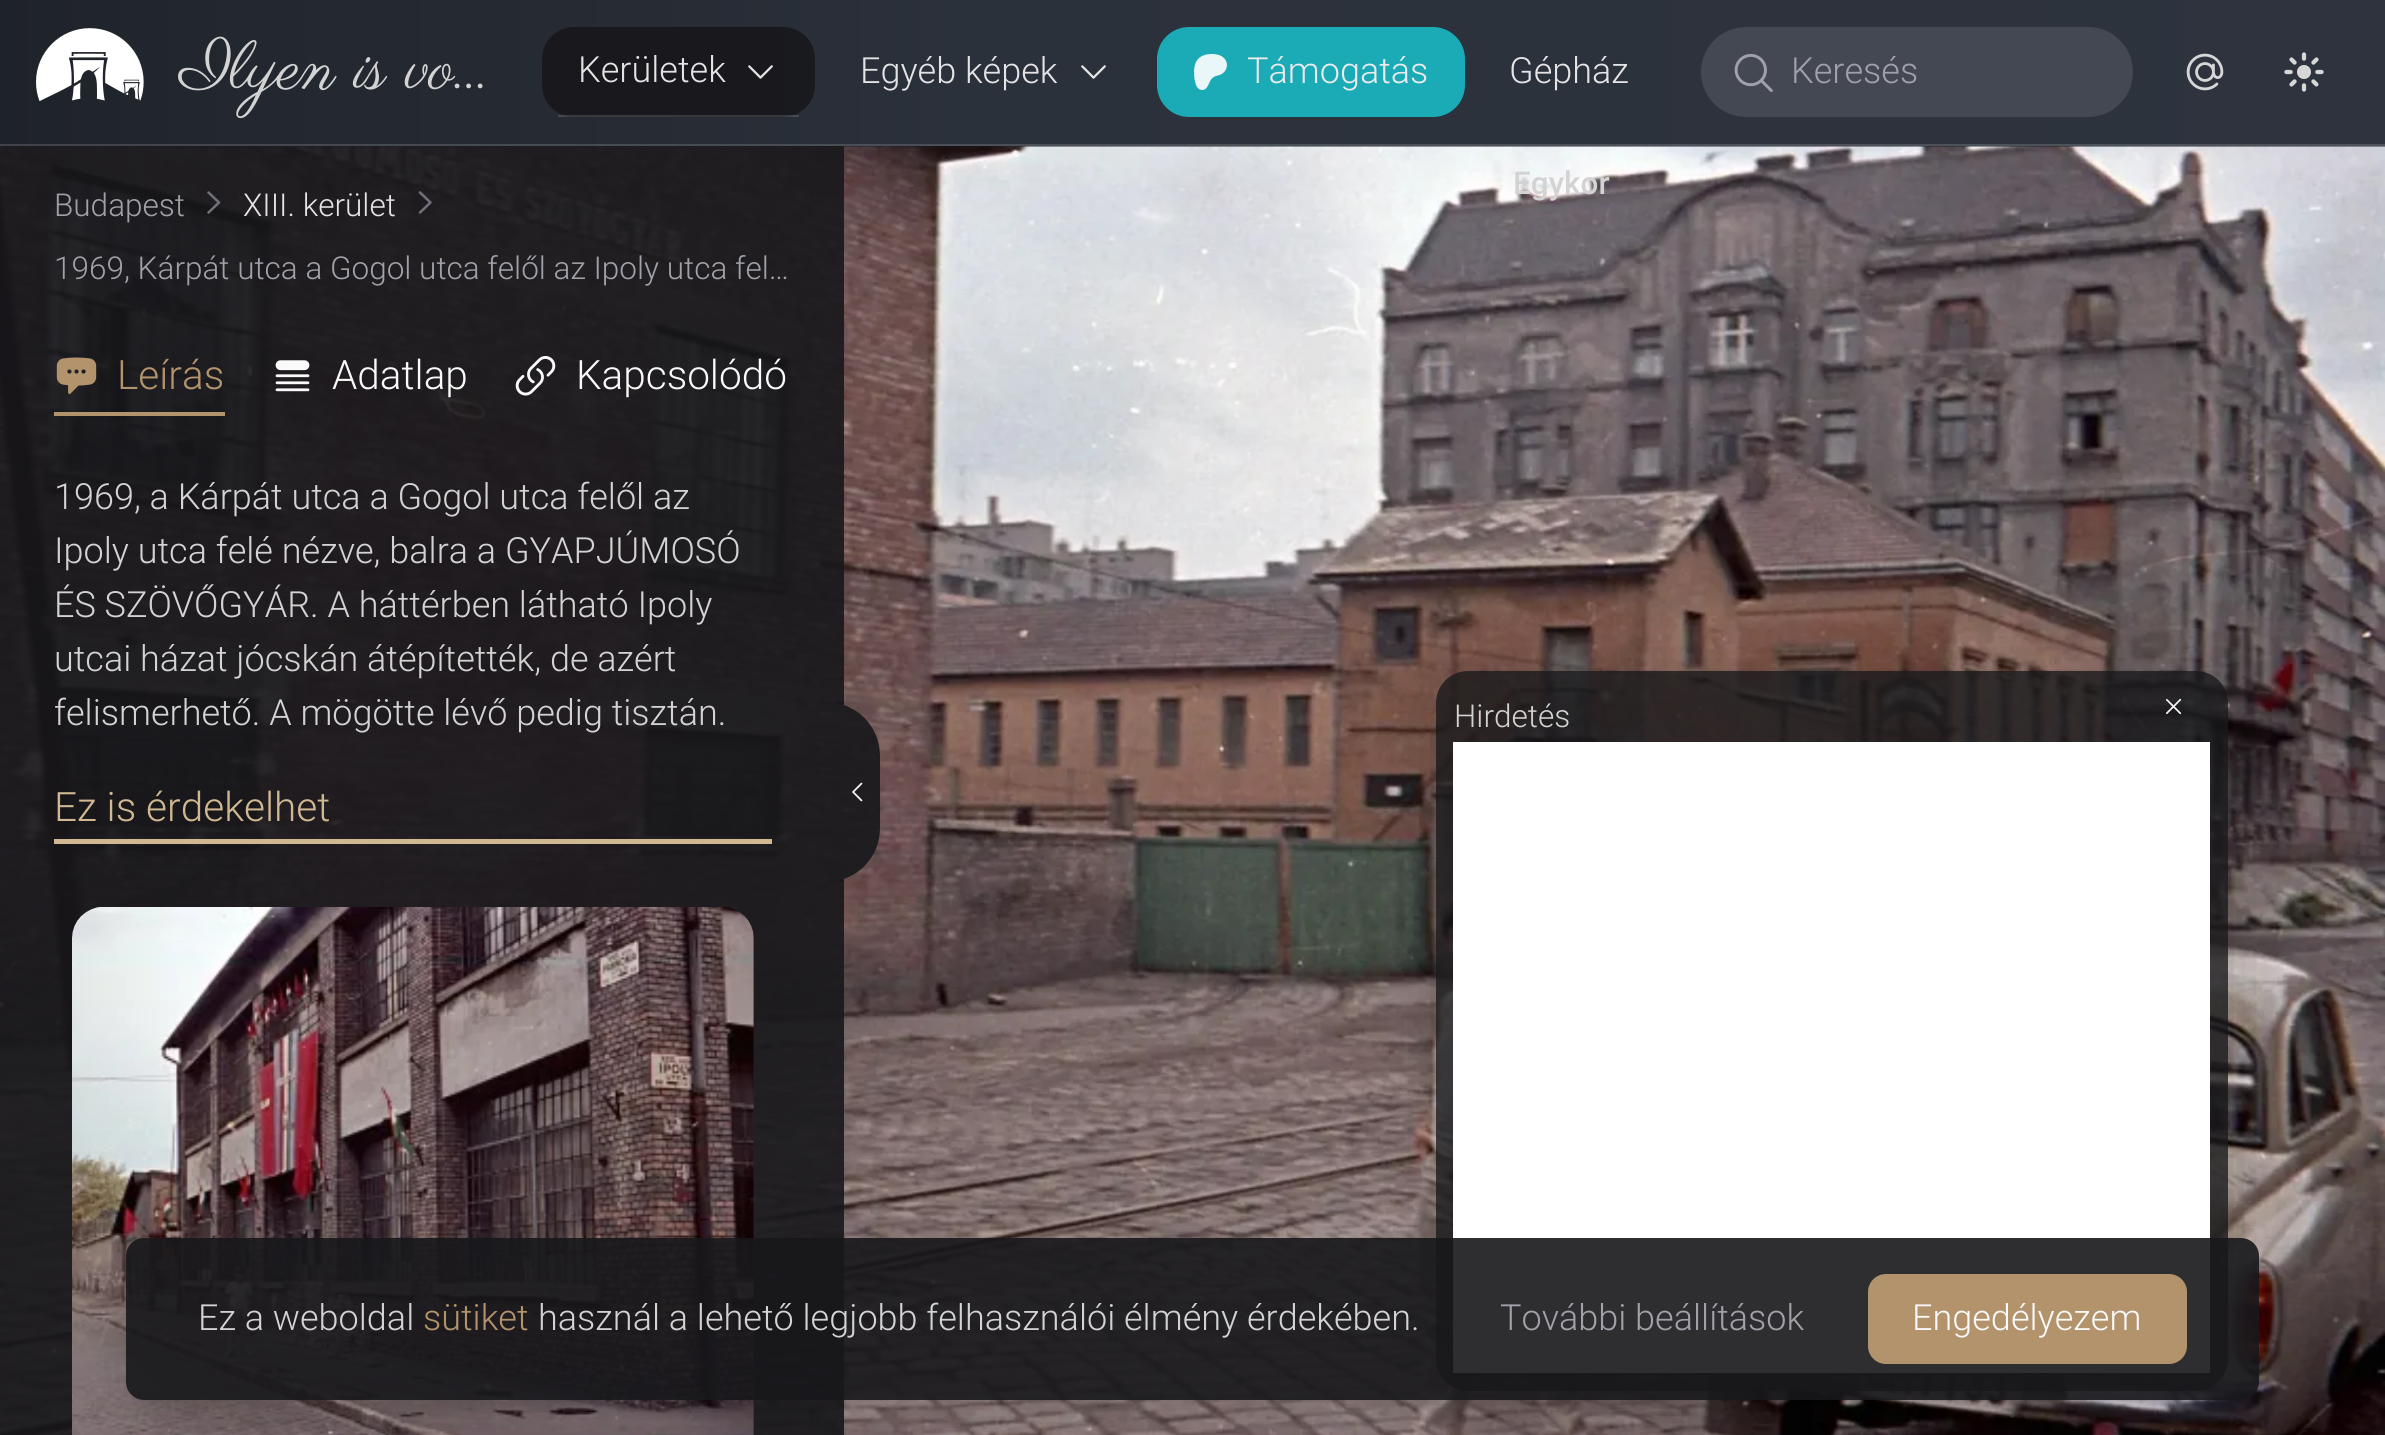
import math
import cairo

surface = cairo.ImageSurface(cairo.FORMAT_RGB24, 2385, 1435)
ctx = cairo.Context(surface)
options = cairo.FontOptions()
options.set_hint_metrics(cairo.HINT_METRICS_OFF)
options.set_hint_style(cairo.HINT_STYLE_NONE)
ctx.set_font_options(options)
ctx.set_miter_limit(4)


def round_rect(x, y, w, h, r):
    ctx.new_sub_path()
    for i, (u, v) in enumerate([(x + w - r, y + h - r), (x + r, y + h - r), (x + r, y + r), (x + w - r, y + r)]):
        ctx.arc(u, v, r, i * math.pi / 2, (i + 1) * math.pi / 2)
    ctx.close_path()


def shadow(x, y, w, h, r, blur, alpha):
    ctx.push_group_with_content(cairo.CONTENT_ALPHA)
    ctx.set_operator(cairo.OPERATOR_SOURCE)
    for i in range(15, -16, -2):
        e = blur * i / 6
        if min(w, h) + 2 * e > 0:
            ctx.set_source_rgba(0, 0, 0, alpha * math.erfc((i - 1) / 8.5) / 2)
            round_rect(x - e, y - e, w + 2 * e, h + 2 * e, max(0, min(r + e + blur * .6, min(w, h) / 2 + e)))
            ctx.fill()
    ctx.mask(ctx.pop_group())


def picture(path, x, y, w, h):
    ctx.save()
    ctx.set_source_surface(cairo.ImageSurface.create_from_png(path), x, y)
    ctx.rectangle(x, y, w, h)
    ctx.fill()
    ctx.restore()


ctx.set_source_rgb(0.102, 0.114, 0.129)
ctx.paint()
gradient = cairo.LinearGradient(0, 718, 2385, 718)
gradient.add_color_stop_rgba(0, 0.118, 0.133, 0.161, 1)
gradient.add_color_stop_rgba(0.1, 0.137, 0.153, 0.184, 1)
gradient.add_color_stop_rgba(0.2, 0.145, 0.165, 0.196, 1)
gradient.add_color_stop_rgba(0.3, 0.153, 0.173, 0.208, 1)
gradient.add_color_stop_rgba(0.4, 0.169, 0.192, 0.231, 1)
gradient.add_color_stop_rgba(1, 0.18, 0.2, 0.243, 1)
ctx.set_source(gradient)
ctx.rectangle(0, 0, 2385, 144)
ctx.fill()
gradient = cairo.LinearGradient(0, 718, 2385, 718)
gradient.add_color_stop_rgba(0, 0.251, 0.263, 0.286, 1)
gradient.add_color_stop_rgba(0.1, 0.267, 0.278, 0.306, 1)
gradient.add_color_stop_rgba(0.2, 0.275, 0.29, 0.318, 1)
gradient.add_color_stop_rgba(0.3, 0.278, 0.298, 0.325, 1)
gradient.add_color_stop_rgba(0.4, 0.294, 0.314, 0.345, 1)
gradient.add_color_stop_rgba(1, 0.302, 0.322, 0.357, 1)
ctx.set_source(gradient)
ctx.rectangle(0, 144, 2385, 2)
ctx.fill()
picture("img1.png", 36, 28, 108, 74)
ctx.select_font_face("Parisienne")
ctx.set_font_size(67.5)
ctx.set_source_rgb(0.831, 0.827, 0.827)
ctx.move_to(180, 88)
ctx.show_text("Ilyen is vo…")
ctx.set_source_rgba(0.094, 0.094, 0.106, 0.9)
round_rect(542, 27, 273, 90, 32)
ctx.fill()
ctx.set_source_rgba(1, 1, 1, 0.14)
ctx.rectangle(558, 115, 241, 2)
ctx.fill()
ctx.select_font_face("Roboto Light")
ctx.set_font_size(36)
ctx.set_source_rgb(0.894, 0.894, 0.906)
ctx.move_to(578, 82)
ctx.show_text("Kerületek")
picture("img2.png", 748, 65, 25, 14)
ctx.move_to(860, 83)
ctx.show_text("Egyéb képek")
picture("img3.png", 1081, 65, 25, 14)
ctx.set_source_rgb(0.102, 0.671, 0.714)
round_rect(1157, 27, 308, 90, 32)
ctx.fill()
picture("img4.png", 1194, 54, 33, 36)
ctx.set_source_rgb(0.918, 0.918, 0.925)
ctx.move_to(1247, 83)
ctx.show_text("Támogatás")
ctx.set_source_rgb(0.894, 0.894, 0.906)
ctx.move_to(1509, 83)
ctx.show_text("Gépház")
ctx.set_source_rgb(0.267, 0.282, 0.325)
round_rect(1701, 27, 432, 90, 45)
ctx.fill()
picture("img5.png", 1734, 53, 39, 40)
ctx.set_source_rgb(0.631, 0.631, 0.667)
ctx.move_to(1791, 83)
ctx.show_text("Keresés")
picture("img6.png", 2186, 53, 38, 38)
picture("img7.png", 2284, 52, 40, 40)
picture("img8.png", 0, 146, 2385, 1289)
ctx.select_font_face("Roboto Medium")
ctx.set_font_size(31.5)
ctx.set_source_rgb(0.831, 0.827, 0.827)
ctx.move_to(1513, 194)
ctx.show_text("Egykor")
ctx.set_source_rgba(0.094, 0.094, 0.106, 0.9)
ctx.rectangle(0, 146, 844, 1289)
ctx.fill()
ctx.select_font_face("Roboto Light")
ctx.set_source_rgb(0.631, 0.631, 0.667)
ctx.move_to(54, 216)
ctx.show_text("Budapest")
ctx.new_path()
ctx.move_to(208.5, 212.5)
ctx.line_to(219, 202.5)
ctx.line_to(208.5, 192.5)
ctx.set_source_rgb(0.443, 0.443, 0.478)
ctx.set_line_width(2.5)
ctx.set_line_cap(cairo.LINE_CAP_ROUND)
ctx.set_line_join(cairo.LINE_JOIN_ROUND)
ctx.stroke()
ctx.set_source_rgb(0.894, 0.894, 0.906)
ctx.move_to(243, 216)
ctx.show_text("XIII. kerület")
ctx.new_path()
ctx.move_to(420, 212.5)
ctx.line_to(430.5, 202.5)
ctx.line_to(420, 192.5)
ctx.set_source_rgb(0.443, 0.443, 0.478)
ctx.stroke()
ctx.set_source_rgb(0.631, 0.631, 0.667)
ctx.move_to(54, 279)
ctx.show_text("1969, Kárpát utca a Gogol utca felől az Ipoly utca fel…")
picture("img9.png", 56, 357, 41, 37)
ctx.set_font_size(40.5)
ctx.set_source_rgb(0.698, 0.576, 0.424)
ctx.move_to(117, 389)
ctx.show_text("Leírás")
ctx.rectangle(54, 412, 171, 4)
ctx.fill()
picture("img10.png", 275, 360, 35, 32)
ctx.set_source_rgb(0.98, 0.98, 0.98)
ctx.move_to(332, 389)
ctx.show_text("Adatlap")
picture("img11.png", 515, 356, 41, 40)
ctx.move_to(576, 389)
ctx.show_text("Kapcsolódó")
ctx.set_font_size(36)
ctx.set_source_rgb(0.831, 0.827, 0.827)
ctx.move_to(54, 509)
ctx.show_text("1969, a Kárpát utca a Gogol utca felől az")
ctx.move_to(54, 563)
ctx.show_text("Ipoly utca felé nézve, balra a GYAPJÚMOSÓ")
ctx.move_to(54, 617)
ctx.show_text("ÉS SZÖVŐGYÁR. A háttérben látható Ipoly")
ctx.move_to(54, 671)
ctx.show_text("utcai házat jócskán átépítették, de azért")
ctx.move_to(54, 725)
ctx.show_text("felismerhető. A mögötte lévő pedig tisztán.")
ctx.set_source_rgb(0.816, 0.722, 0.576)
ctx.rectangle(54, 839, 718, 5)
ctx.fill()
ctx.set_font_size(40.5)
ctx.move_to(54, 821)
ctx.show_text("Ez is érdekelhet")
ctx.set_source_rgb(0.153, 0.153, 0.165)
ctx.new_path()
ctx.move_to(104, 907)
ctx.line_to(722, 907)
ctx.curve_to(739.5, 907, 754, 921.5, 754, 939)
ctx.line_to(754, 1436)
ctx.line_to(72, 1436)
ctx.line_to(72, 939)
ctx.curve_to(72, 921.5, 86.5, 907, 104, 907)
ctx.close_path()
ctx.fill()
picture("img12.png", 72, 907, 682, 528)
ctx.set_source_rgba(0.094, 0.094, 0.106, 0.9)
ctx.new_path()
ctx.move_to(844, 702)
ctx.line_to(826, 702)
ctx.curve_to(856, 702, 880, 726, 880, 756)
ctx.line_to(880, 828)
ctx.curve_to(880, 858, 856, 882, 826, 882)
ctx.line_to(844, 882)
ctx.close_path()
ctx.fill()
picture("img13.png", 852, 782, 11, 20)
ctx.save()
ctx.set_fill_rule(cairo.FILL_RULE_EVEN_ODD)
ctx.new_path()
ctx.move_to(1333, 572)
ctx.line_to(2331, 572)
ctx.line_to(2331, 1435)
ctx.line_to(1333, 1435)
ctx.close_path()
ctx.move_to(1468, 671)
ctx.line_to(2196, 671)
ctx.curve_to(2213.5, 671, 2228, 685.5, 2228, 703)
ctx.line_to(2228, 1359)
ctx.curve_to(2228, 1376.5, 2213.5, 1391, 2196, 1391)
ctx.line_to(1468, 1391)
ctx.curve_to(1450.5, 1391, 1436, 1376.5, 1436, 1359)
ctx.line_to(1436, 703)
ctx.curve_to(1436, 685.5, 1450.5, 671, 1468, 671)
ctx.close_path()
ctx.clip()
ctx.set_source_rgb(0, 0, 0)
shadow(1436, 675, 792, 720, 32, 34, 0.22)
ctx.restore()
ctx.set_source_rgba(0.094, 0.094, 0.106, 0.8)
round_rect(1436, 671, 792, 720, 32)
ctx.fill()
ctx.set_font_size(31.5)
ctx.set_source_rgb(0.831, 0.827, 0.827)
ctx.move_to(1454, 727)
ctx.show_text("Hirdetés")
picture("img14.png", 2166, 698, 16, 17)
ctx.set_source_rgb(1, 1, 1)
ctx.rectangle(1453, 742, 757, 631)
ctx.fill()
ctx.save()
ctx.set_fill_rule(cairo.FILL_RULE_EVEN_ODD)
ctx.new_path()
ctx.move_to(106, 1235)
ctx.line_to(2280, 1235)
ctx.line_to(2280, 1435)
ctx.line_to(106, 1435)
ctx.close_path()
ctx.move_to(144, 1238)
ctx.line_to(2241, 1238)
ctx.curve_to(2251, 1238, 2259, 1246, 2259, 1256)
ctx.line_to(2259, 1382)
ctx.curve_to(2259, 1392, 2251, 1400, 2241, 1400)
ctx.line_to(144, 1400)
ctx.curve_to(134, 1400, 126, 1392, 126, 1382)
ctx.line_to(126, 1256)
ctx.curve_to(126, 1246, 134, 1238, 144, 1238)
ctx.close_path()
ctx.clip()
ctx.set_source_rgb(0, 0, 0)
shadow(140, 1269, 2106, 135, 5, 11, 0.1)
ctx.restore()
ctx.save()
ctx.set_fill_rule(cairo.FILL_RULE_EVEN_ODD)
ctx.new_path()
ctx.move_to(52, 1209)
ctx.line_to(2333, 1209)
ctx.line_to(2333, 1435)
ctx.line_to(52, 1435)
ctx.close_path()
ctx.move_to(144, 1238)
ctx.line_to(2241, 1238)
ctx.curve_to(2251, 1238, 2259, 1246, 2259, 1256)
ctx.line_to(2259, 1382)
ctx.curve_to(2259, 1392, 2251, 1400, 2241, 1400)
ctx.line_to(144, 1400)
ctx.curve_to(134, 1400, 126, 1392, 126, 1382)
ctx.line_to(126, 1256)
ctx.curve_to(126, 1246, 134, 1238, 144, 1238)
ctx.close_path()
ctx.clip()
ctx.set_source_rgb(0, 0, 0)
shadow(137, 1294, 2111, 139, 7, 28, 0.1)
ctx.restore()
ctx.set_source_rgba(0.094, 0.094, 0.106, 0.9)
round_rect(126, 1238, 2133, 162, 18)
ctx.fill()
ctx.set_font_size(36)
ctx.set_source_rgb(0.831, 0.827, 0.827)
ctx.move_to(198, 1330)
ctx.show_text("Ez a weboldal")
ctx.set_source_rgb(0.698, 0.576, 0.424)
ctx.move_to(423, 1330)
ctx.show_text("sütiket")
ctx.set_source_rgb(0.831, 0.827, 0.827)
ctx.move_to(538, 1330)
ctx.show_text("használ a lehető legjobb felhasználói élmény érdekében.")
ctx.set_source_rgb(0.631, 0.631, 0.667)
ctx.move_to(1500, 1330)
ctx.show_text("További beállítások")
ctx.set_source_rgb(0.698, 0.576, 0.424)
round_rect(1868, 1274, 319, 90, 18)
ctx.fill()
ctx.set_source_rgb(0.98, 0.98, 0.98)
ctx.move_to(1912, 1330)
ctx.show_text("Engedélyezem")
surface.write_to_png("page.png")
